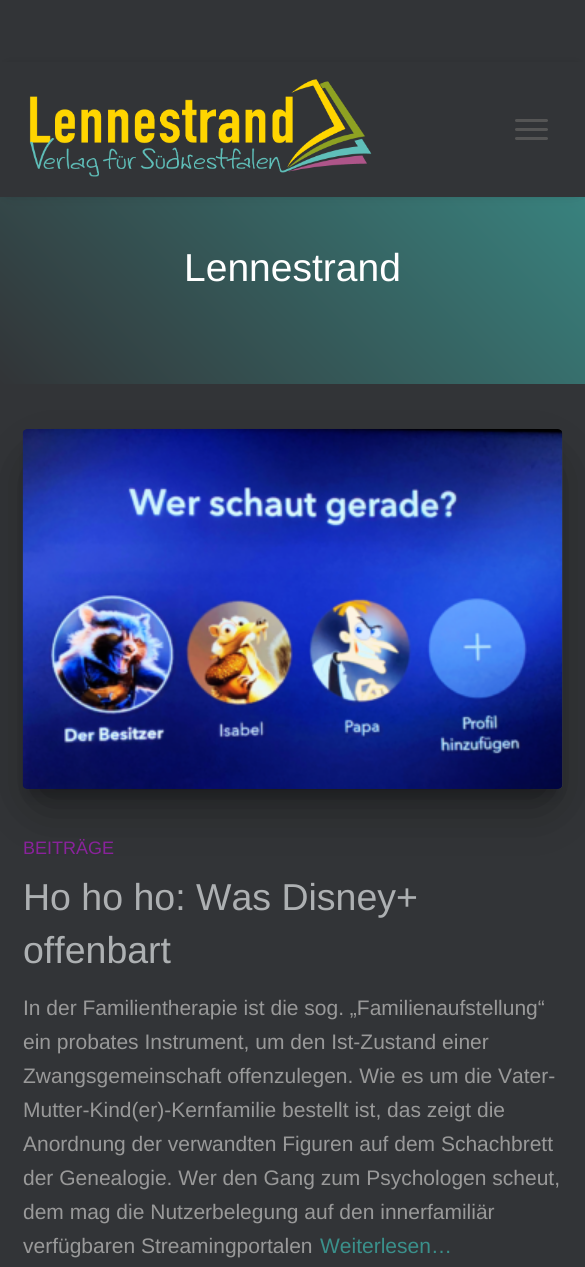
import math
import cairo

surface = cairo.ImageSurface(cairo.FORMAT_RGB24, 585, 1267)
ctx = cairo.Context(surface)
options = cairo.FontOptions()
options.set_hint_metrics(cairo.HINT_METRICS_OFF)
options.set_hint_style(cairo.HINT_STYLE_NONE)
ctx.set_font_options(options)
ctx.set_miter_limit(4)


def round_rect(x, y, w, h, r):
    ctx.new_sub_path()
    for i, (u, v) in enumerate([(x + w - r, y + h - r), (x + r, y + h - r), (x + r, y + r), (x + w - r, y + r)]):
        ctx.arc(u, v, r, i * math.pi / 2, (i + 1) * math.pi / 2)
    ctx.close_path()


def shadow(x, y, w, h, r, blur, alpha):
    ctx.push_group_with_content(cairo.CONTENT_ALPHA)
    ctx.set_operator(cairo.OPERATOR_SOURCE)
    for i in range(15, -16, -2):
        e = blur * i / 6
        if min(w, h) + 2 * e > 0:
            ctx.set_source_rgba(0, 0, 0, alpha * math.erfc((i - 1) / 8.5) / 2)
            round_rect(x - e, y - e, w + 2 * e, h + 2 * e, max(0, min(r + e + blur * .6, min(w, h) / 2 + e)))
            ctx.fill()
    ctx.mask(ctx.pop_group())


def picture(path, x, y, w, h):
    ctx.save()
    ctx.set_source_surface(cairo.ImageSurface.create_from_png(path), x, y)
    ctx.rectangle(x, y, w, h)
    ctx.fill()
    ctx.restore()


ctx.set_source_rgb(0.196, 0.204, 0.216)
ctx.paint()
gradient = cairo.LinearGradient(65, 449, 520, -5.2)
gradient.add_color_stop_rgba(0, 0.196, 0.204, 0.216, 1)
gradient.add_color_stop_rgba(1, 0.227, 0.565, 0.545, 1)
ctx.set_source(gradient)
ctx.rectangle(0, 197, 585, 187)
ctx.fill()
ctx.set_source_rgb(0, 0, 0)
shadow(9, 71, 567, 118, 0, 7.5, 0.42)
ctx.set_source_rgb(0.196, 0.204, 0.216)
ctx.rectangle(0, 62, 585, 135)
ctx.fill()
picture("img1.png", 29, 79, 343, 98)
ctx.set_source_rgb(0.333, 0.333, 0.333)
round_rect(515, 119, 33, 3, 1.5)
ctx.fill()
round_rect(515, 128, 33, 3, 1.5)
ctx.fill()
round_rect(515, 137, 33, 3, 1.5)
ctx.fill()
ctx.select_font_face("Liberation Sans")
ctx.set_font_size(39)
ctx.set_source_rgb(1, 1, 1)
ctx.move_to(184, 281)
ctx.show_text("Lennestrand")
ctx.set_source_rgb(0, 0, 0)
shadow(30, 449, 525, 345, 0, 7.5, 0.2)
shadow(41, 471, 504, 324, 0, 28.5, 0.56)
ctx.set_source_rgb(0.196, 0.204, 0.22)
round_rect(23, 429, 540, 360, 5)
ctx.fill()
picture("img2.png", 22, 429, 541, 360)
ctx.set_font_size(18)
ctx.set_source_rgb(0.537, 0.133, 0.608)
ctx.move_to(23, 854)
ctx.show_text("BEITRÄGE")
ctx.set_font_size(37.5)
ctx.set_source_rgb(0.678, 0.69, 0.698)
ctx.move_to(23, 910)
ctx.show_text("Ho ho ho: Was Disney+")
ctx.move_to(23, 963)
ctx.show_text("offenbart")
ctx.set_font_size(21)
ctx.set_source_rgb(0.6, 0.6, 0.6)
ctx.move_to(23, 1015)
ctx.show_text("In der Familientherapie ist die sog. „Familienaufstellung“")
ctx.move_to(23, 1049)
ctx.show_text("ein probates Instrument, um den Ist-Zustand einer")
ctx.move_to(23, 1083)
ctx.show_text("Zwangsgemeinschaft offenzulegen. Wie es um die Vater-")
ctx.move_to(23, 1117)
ctx.show_text("Mutter-Kind(er)-Kernfamilie bestellt ist, das zeigt die")
ctx.move_to(23, 1151)
ctx.show_text("Anordnung der verwandten Figuren auf dem Schachbrett")
ctx.move_to(23, 1185)
ctx.show_text("der Genealogie. Wer den Gang zum Psychologen scheut,")
ctx.move_to(23, 1219)
ctx.show_text("dem mag die Nutzerbelegung auf den innerfamiliär")
ctx.move_to(23, 1253)
ctx.show_text("verfügbaren Streamingportalen")
ctx.set_source_rgb(0.227, 0.565, 0.545)
ctx.move_to(320, 1253)
ctx.show_text("Weiterlesen…")
surface.write_to_png("page.png")
